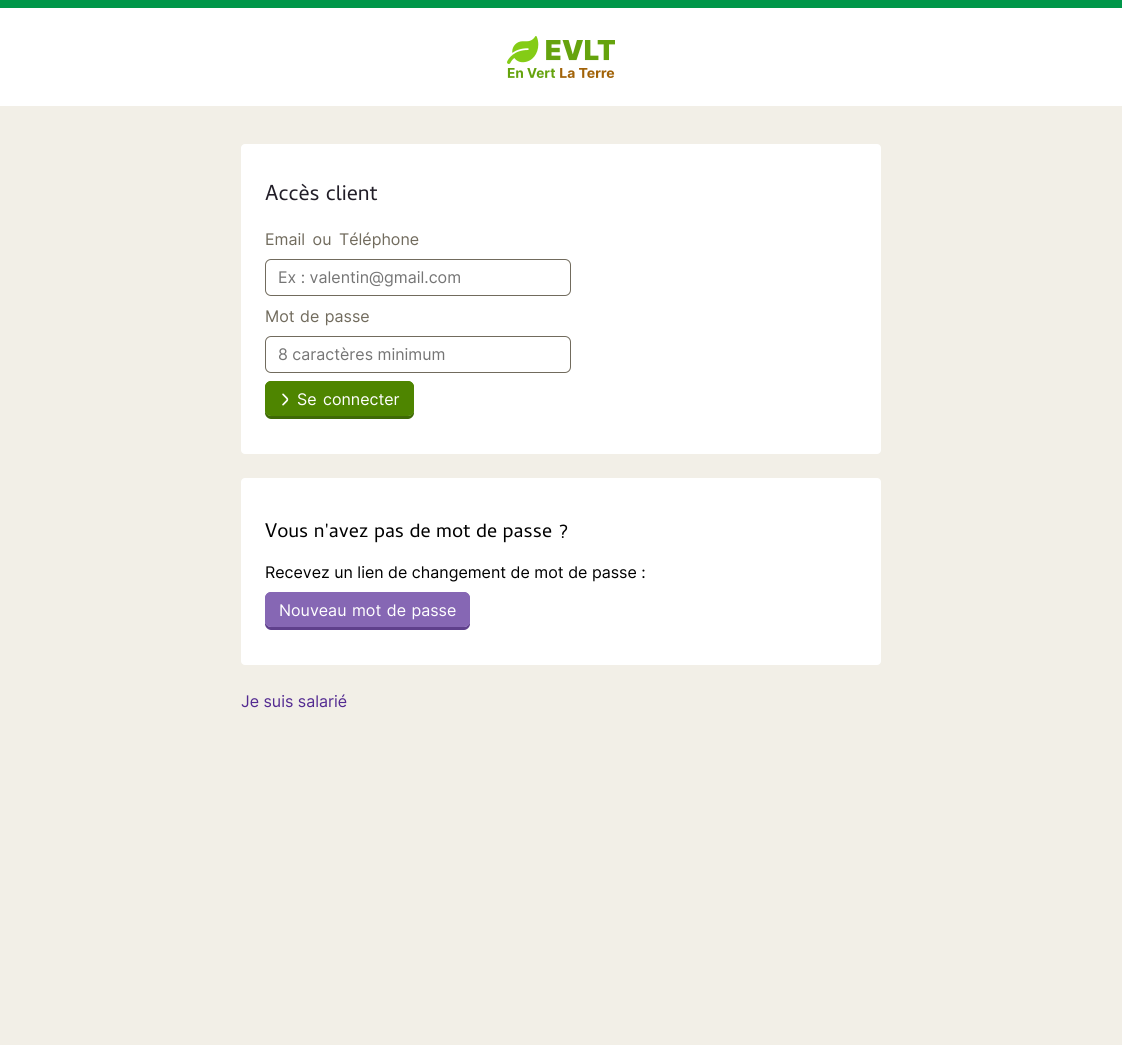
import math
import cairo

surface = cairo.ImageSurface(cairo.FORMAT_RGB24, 1122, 1045)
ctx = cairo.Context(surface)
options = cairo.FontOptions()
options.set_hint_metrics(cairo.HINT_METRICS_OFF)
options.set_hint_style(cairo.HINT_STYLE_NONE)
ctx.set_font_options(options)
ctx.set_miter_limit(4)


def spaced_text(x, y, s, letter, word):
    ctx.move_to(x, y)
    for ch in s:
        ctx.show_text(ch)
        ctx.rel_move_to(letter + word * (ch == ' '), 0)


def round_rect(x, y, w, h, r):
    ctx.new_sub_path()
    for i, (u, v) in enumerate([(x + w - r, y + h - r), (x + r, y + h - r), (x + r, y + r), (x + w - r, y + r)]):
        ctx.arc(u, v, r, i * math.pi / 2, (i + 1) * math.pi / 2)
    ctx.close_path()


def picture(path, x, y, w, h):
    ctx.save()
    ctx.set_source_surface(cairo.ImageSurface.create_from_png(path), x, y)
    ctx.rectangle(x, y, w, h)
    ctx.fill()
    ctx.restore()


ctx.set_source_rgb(0.949, 0.937, 0.906)
ctx.paint()
ctx.set_source_rgb(1, 1, 1)
ctx.rectangle(0, 8, 1122, 98)
ctx.fill()
ctx.set_source_rgb(0, 0.592, 0.286)
ctx.rectangle(0, 0, 1122, 8)
ctx.fill()
picture("img1.png", 507, 36, 108, 42)
ctx.set_source_rgb(1, 1, 1)
round_rect(241, 144, 640, 310, 4)
ctx.fill()
ctx.select_font_face("Cambay")
ctx.set_font_size(22)
ctx.set_source_rgb(0.133, 0.118, 0.157)
ctx.move_to(265, 200)
ctx.show_text("Accès client")
ctx.select_font_face("Inter")
ctx.set_font_size(16)
ctx.set_source_rgb(0.443, 0.42, 0.365)
spaced_text(265, 245, "Email ou Téléphone", 0, 3)
round_rect(265.5, 259.5, 305, 36, 5.5)
ctx.set_line_width(1)
ctx.stroke()
ctx.set_source_rgb(0.459, 0.459, 0.459)
ctx.move_to(278, 283)
ctx.show_text("Ex : valentin@gmail.com")
ctx.set_source_rgb(0.443, 0.42, 0.365)
spaced_text(265, 322, "Mot de passe", 0, 1)
round_rect(265.5, 336.5, 305, 36, 5.5)
ctx.stroke()
ctx.set_source_rgb(0.459, 0.459, 0.459)
ctx.move_to(278, 360)
ctx.show_text("8 caractères minimum")
ctx.set_source_rgb(0.243, 0.412, 0.02)
ctx.new_path()
ctx.move_to(265, 410)
ctx.line_to(265, 413)
ctx.curve_to(265, 416, 268, 419, 271, 419)
ctx.line_to(408, 419)
ctx.curve_to(411, 419, 414, 416, 414, 413)
ctx.line_to(414, 410)
ctx.curve_to(414, 413, 411, 416, 408, 416)
ctx.line_to(271, 416)
ctx.curve_to(268, 416, 265, 413, 265, 410)
ctx.close_path()
ctx.fill()
ctx.set_source_rgb(0.306, 0.522, 0)
round_rect(265, 381, 149, 35, 6)
ctx.fill()
ctx.set_fill_rule(cairo.FILL_RULE_EVEN_ODD)
ctx.new_path()
ctx.move_to(271, 381)
ctx.line_to(408, 381)
ctx.curve_to(411, 381, 414, 384, 414, 387)
ctx.line_to(414, 410)
ctx.curve_to(414, 413, 411, 416, 408, 416)
ctx.line_to(271, 416)
ctx.curve_to(268, 416, 265, 413, 265, 410)
ctx.line_to(265, 387)
ctx.curve_to(265, 384, 268, 381, 271, 381)
ctx.close_path()
ctx.move_to(271, 383)
ctx.line_to(408, 383)
ctx.curve_to(410, 383, 412, 385, 412, 387)
ctx.line_to(412, 410)
ctx.curve_to(412, 413, 410, 416, 408, 416)
ctx.line_to(271, 416)
ctx.curve_to(269, 416, 267, 413, 267, 410)
ctx.line_to(267, 387)
ctx.curve_to(267, 385, 269, 383, 271, 383)
ctx.close_path()
ctx.fill()
picture("img2.png", 282, 393, 7, 13)
ctx.set_source_rgb(1, 1, 1)
spaced_text(297, 405, "Se connecter", 0, 2)
round_rect(241, 478, 640, 187, 4)
ctx.fill()
ctx.select_font_face("Cambay")
ctx.set_font_size(20)
ctx.set_source_rgb(0, 0, 0)
ctx.move_to(265, 537)
ctx.show_text("Vous n'avez pas de mot de passe ?")
ctx.select_font_face("Inter")
ctx.set_font_size(16)
ctx.move_to(265, 578)
ctx.show_text("Recevez un lien de changement de mot de passe :")
ctx.set_source_rgb(0.373, 0.251, 0.549)
ctx.set_fill_rule(cairo.FILL_RULE_WINDING)
ctx.new_path()
ctx.move_to(265, 621)
ctx.line_to(265, 624)
ctx.curve_to(265, 627, 268, 630, 271, 630)
ctx.line_to(464, 630)
ctx.curve_to(467, 630, 470, 627, 470, 624)
ctx.line_to(470, 621)
ctx.curve_to(470, 624, 467, 627, 464, 627)
ctx.line_to(271, 627)
ctx.curve_to(268, 627, 265, 624, 265, 621)
ctx.close_path()
ctx.fill()
ctx.set_source_rgb(0.525, 0.404, 0.706)
round_rect(265, 592, 205, 35, 6)
ctx.fill()
ctx.set_fill_rule(cairo.FILL_RULE_EVEN_ODD)
ctx.new_path()
ctx.move_to(271, 592)
ctx.line_to(464, 592)
ctx.curve_to(467, 592, 470, 595, 470, 598)
ctx.line_to(470, 621)
ctx.curve_to(470, 624, 467, 627, 464, 627)
ctx.line_to(271, 627)
ctx.curve_to(268, 627, 265, 624, 265, 621)
ctx.line_to(265, 598)
ctx.curve_to(265, 595, 268, 592, 271, 592)
ctx.close_path()
ctx.move_to(271, 594)
ctx.line_to(464, 594)
ctx.curve_to(466, 594, 468, 596, 468, 598)
ctx.line_to(468, 621)
ctx.curve_to(468, 624, 466, 627, 464, 627)
ctx.line_to(271, 627)
ctx.curve_to(269, 627, 267, 624, 267, 621)
ctx.line_to(267, 598)
ctx.curve_to(267, 596, 269, 594, 271, 594)
ctx.close_path()
ctx.fill()
ctx.set_source_rgb(1, 1, 1)
spaced_text(279, 616, "Nouveau mot de passe", 0, 1)
ctx.set_source_rgb(0.325, 0.165, 0.569)
ctx.move_to(241, 707)
ctx.show_text("Je suis salarié")
surface.write_to_png("page.png")
